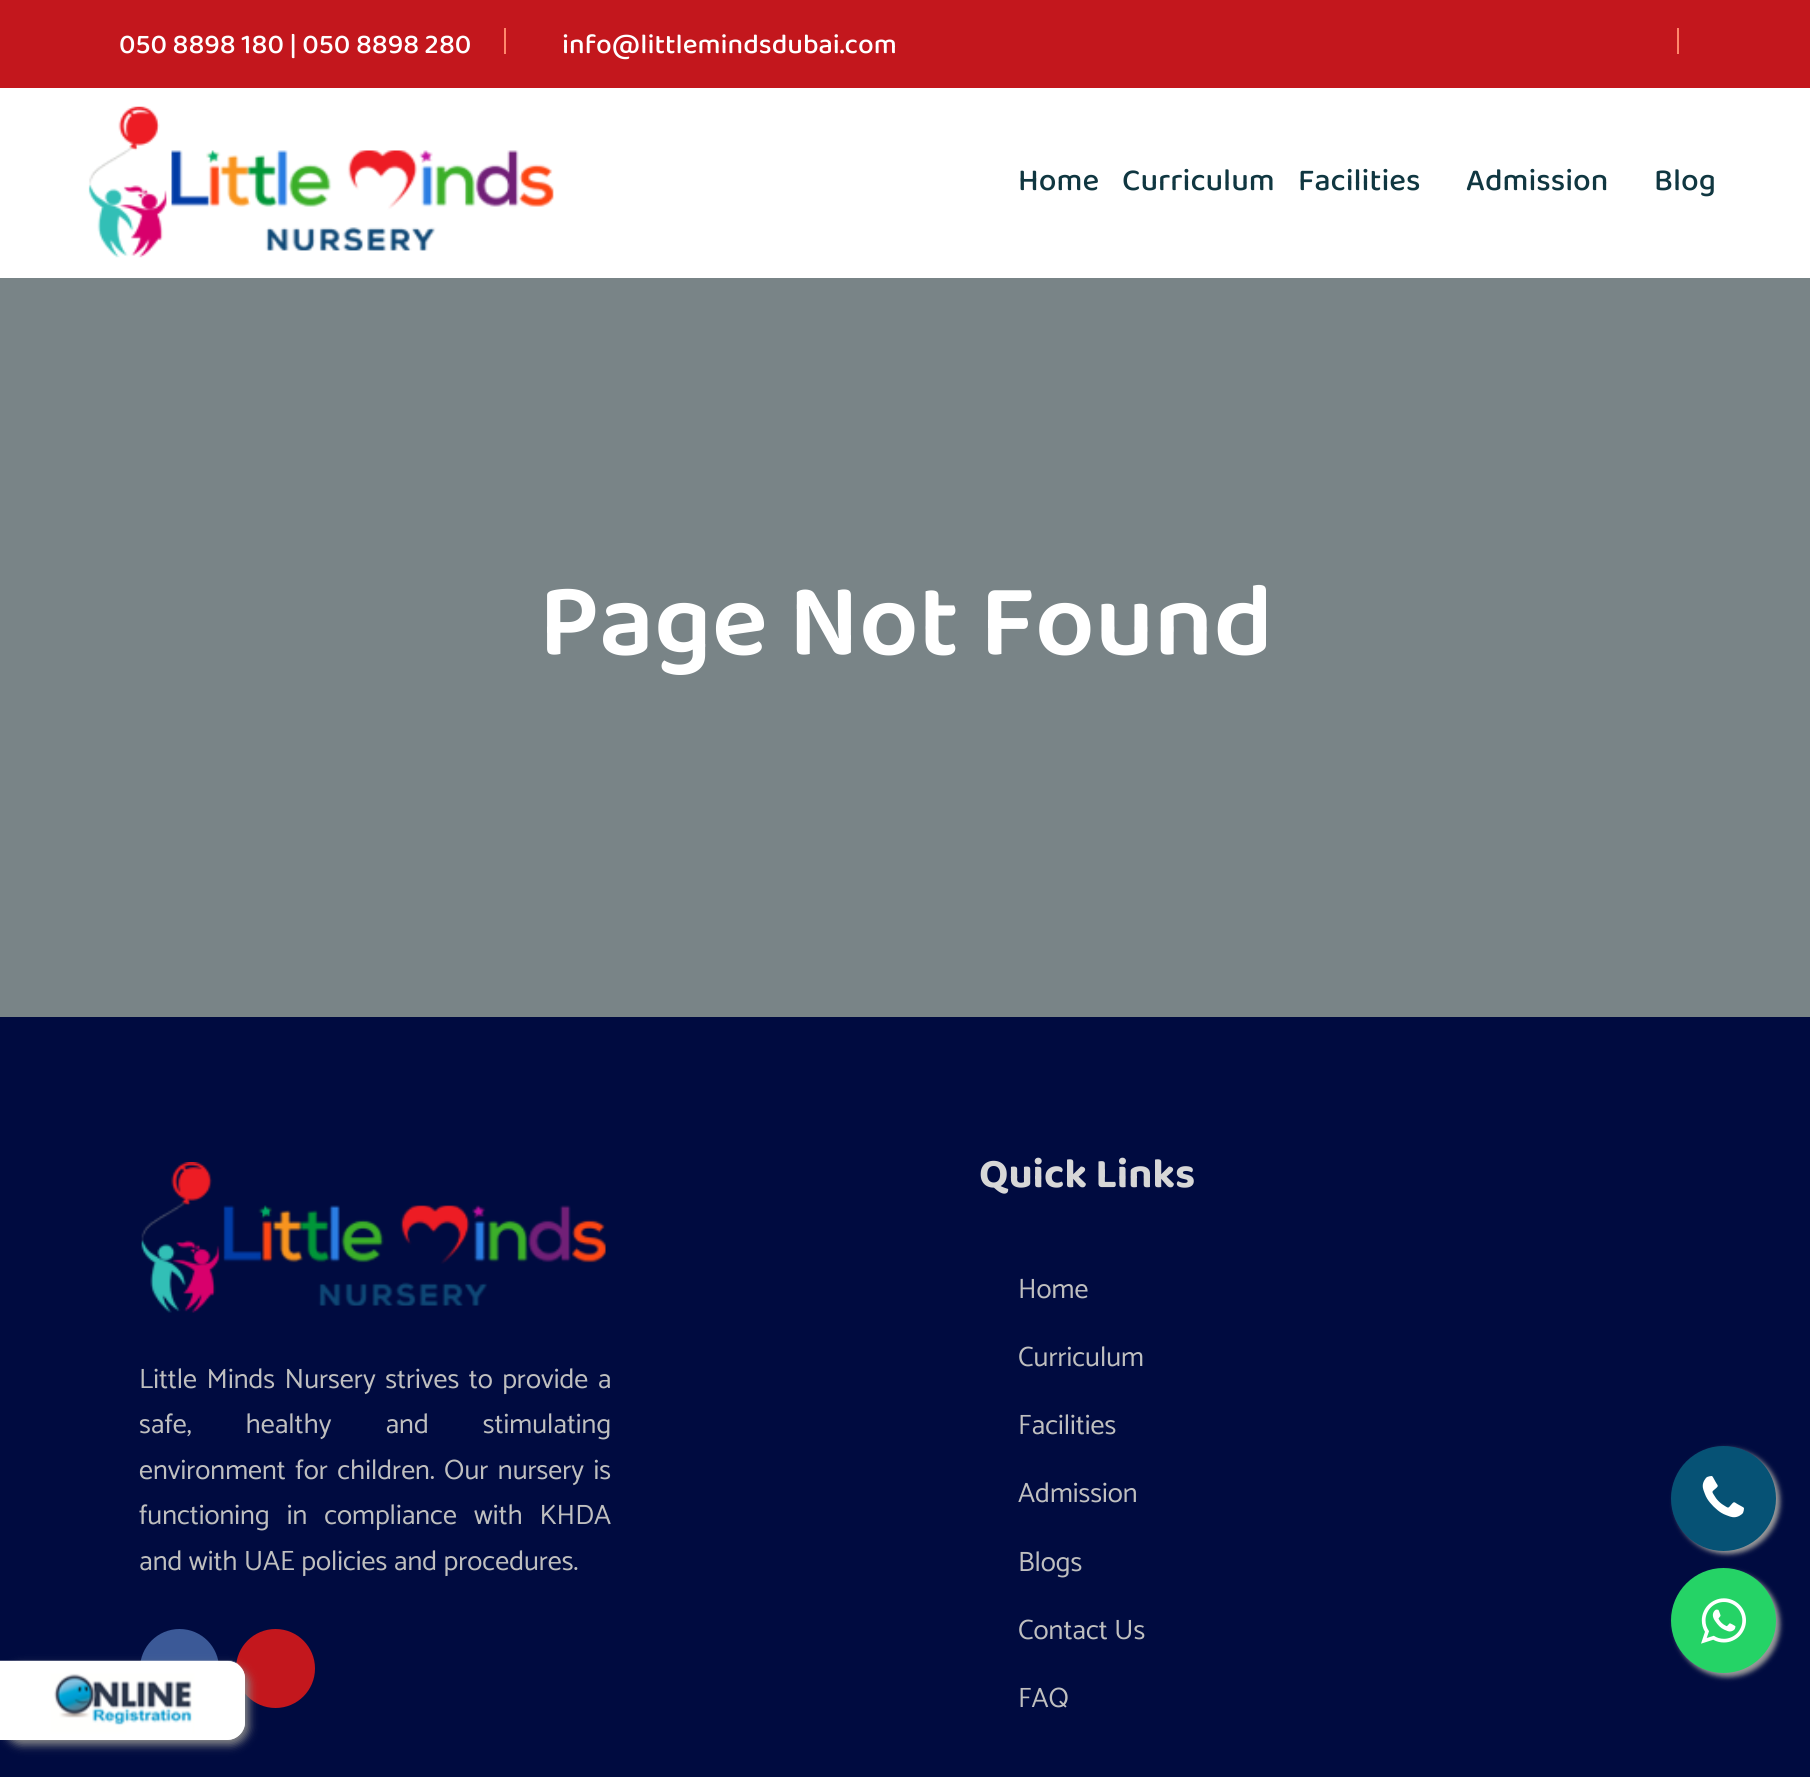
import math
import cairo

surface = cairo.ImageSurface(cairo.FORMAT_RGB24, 1810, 1777)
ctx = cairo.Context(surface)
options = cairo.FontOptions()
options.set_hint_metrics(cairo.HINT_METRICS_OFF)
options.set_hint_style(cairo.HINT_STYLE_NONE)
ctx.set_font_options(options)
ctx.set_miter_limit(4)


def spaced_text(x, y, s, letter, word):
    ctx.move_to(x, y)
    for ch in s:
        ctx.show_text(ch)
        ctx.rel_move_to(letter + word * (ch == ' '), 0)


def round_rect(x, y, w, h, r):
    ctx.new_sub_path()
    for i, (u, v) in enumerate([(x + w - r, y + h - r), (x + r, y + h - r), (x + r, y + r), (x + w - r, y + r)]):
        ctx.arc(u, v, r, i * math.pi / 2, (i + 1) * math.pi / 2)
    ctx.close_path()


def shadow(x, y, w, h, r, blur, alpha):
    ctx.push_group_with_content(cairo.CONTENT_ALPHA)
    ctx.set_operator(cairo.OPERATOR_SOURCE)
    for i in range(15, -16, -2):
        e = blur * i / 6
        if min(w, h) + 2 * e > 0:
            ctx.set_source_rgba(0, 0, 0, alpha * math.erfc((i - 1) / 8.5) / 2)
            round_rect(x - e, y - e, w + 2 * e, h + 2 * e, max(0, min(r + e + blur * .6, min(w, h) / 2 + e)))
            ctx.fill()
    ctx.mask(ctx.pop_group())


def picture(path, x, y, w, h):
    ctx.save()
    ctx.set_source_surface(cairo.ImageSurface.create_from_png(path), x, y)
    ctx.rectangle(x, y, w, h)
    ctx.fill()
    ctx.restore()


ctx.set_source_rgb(1, 1, 1)
ctx.paint()
ctx.set_source_rgb(0.765, 0.09, 0.114)
ctx.rectangle(0, 0, 1810, 88)
ctx.fill()
ctx.select_font_face("Baloo 2 Medium")
ctx.set_font_size(28)
ctx.set_source_rgb(1, 1, 1)
ctx.move_to(119, 53)
ctx.show_text("050 8898 180 | 050 8898 280")
ctx.set_source_rgb(1, 0.533, 0.424)
ctx.rectangle(504, 28, 2, 26)
ctx.fill()
ctx.set_source_rgb(1, 1, 1)
ctx.move_to(562, 53)
ctx.show_text("info@littlemindsdubai.com")
ctx.set_source_rgb(1, 0.533, 0.424)
ctx.rectangle(1677, 28, 2, 26)
ctx.fill()
picture("img1.png", 88, 106, 466, 152)
ctx.set_font_size(31.5)
ctx.set_source_rgb(0.063, 0.216, 0.255)
ctx.move_to(1018, 190)
ctx.show_text("Home")
ctx.move_to(1122, 190)
ctx.show_text("Curriculum")
ctx.move_to(1298, 190)
ctx.show_text("Facilities")
ctx.move_to(1466, 190)
ctx.show_text("Admission")
ctx.move_to(1654, 190)
ctx.show_text("Blog")
ctx.set_source_rgb(0.475, 0.518, 0.529)
ctx.rectangle(0, 278, 1810, 739)
ctx.fill()
ctx.select_font_face("Baloo 2 SemiBold")
ctx.set_font_size(105)
ctx.set_source_rgb(1, 1, 1)
ctx.move_to(539, 654)
ctx.show_text("Page Not Found")
ctx.set_source_rgb(0, 0.043, 0.251)
ctx.rectangle(0, 1017, 1810, 760)
ctx.fill()
picture("img2.png", 141, 1162, 465, 151)
ctx.select_font_face("Catamaran")
ctx.set_font_size(28)
ctx.set_source_rgb(0.749, 0.749, 0.749)
spaced_text(139, 1388, "Little Minds Nursery strives to provide a", 0, 3)
spaced_text(139, 1433, "safe, healthy and stimulating", 0, 47.5)
spaced_text(139, 1479, "environment for children. Our nursery is", 0, 3)
spaced_text(139, 1524, "functioning in compliance with KHDA", 0, 10.5)
ctx.move_to(139, 1570)
ctx.show_text("and with UAE policies and procedures.")
ctx.set_source_rgb(0.231, 0.349, 0.592)
ctx.new_path()
ctx.arc(179.5, 1668.5, 39.5, 0, 2 * math.pi)
ctx.fill()
ctx.set_source_rgb(0.765, 0.09, 0.114)
ctx.arc(275.5, 1668.5, 39.5, 0, 2 * math.pi)
ctx.fill()
ctx.select_font_face("Baloo 2", cairo.FONT_SLANT_NORMAL, cairo.FONT_WEIGHT_BOLD)
ctx.set_font_size(42)
ctx.set_source_rgb(0.843, 0.843, 0.843)
ctx.move_to(979, 1187)
ctx.show_text("Quick Links")
ctx.select_font_face("Catamaran")
ctx.set_font_size(28)
ctx.set_source_rgb(0.749, 0.749, 0.749)
ctx.move_to(1018, 1298)
ctx.show_text("Home")
ctx.move_to(1018, 1366)
ctx.show_text("Curriculum")
ctx.move_to(1018, 1434)
ctx.show_text("Facilities")
ctx.move_to(1018, 1502)
ctx.show_text("Admission")
ctx.move_to(1018, 1571)
ctx.show_text("Blogs")
ctx.move_to(1018, 1639)
ctx.show_text("Contact Us")
ctx.move_to(1018, 1707)
ctx.show_text("FAQ")
ctx.set_source_rgb(0.6, 0.6, 0.6)
shadow(1675, 1449, 105, 105, 52.5, 2.5, 1)
ctx.set_source_rgb(0.024, 0.322, 0.459)
ctx.arc(1723.5, 1498.5, 52.5, 0, 2 * math.pi)
ctx.fill()
picture("img3.png", 1702, 1476, 42, 42)
ctx.set_source_rgb(0.6, 0.6, 0.6)
shadow(1675, 1572, 105, 105, 52.5, 2.5, 1)
ctx.set_source_rgb(0.145, 0.827, 0.4)
ctx.arc(1723.5, 1620.5, 52.5, 0, 2 * math.pi)
ctx.fill()
picture("img4.png", 1701, 1598, 45, 46)
ctx.set_source_rgb(0.533, 0.533, 0.533)
shadow(4, 1666, 245, 79, 18, 4.5, 1)
ctx.set_source_rgb(1, 1, 1)
ctx.new_path()
ctx.move_to(0, 1661)
ctx.line_to(227, 1661)
ctx.curve_to(237, 1661, 245, 1669, 245, 1679)
ctx.line_to(245, 1722)
ctx.curve_to(245, 1732, 237, 1740, 227, 1740)
ctx.line_to(0, 1740)
ctx.close_path()
ctx.fill()
picture("img5.png", 0, 1660, 245, 80)
surface.write_to_png("page.png")
